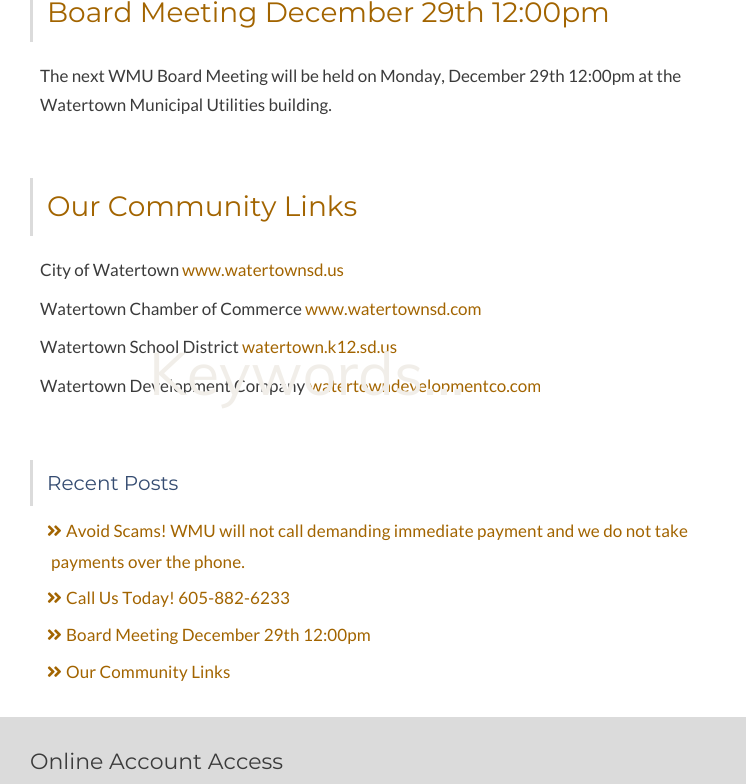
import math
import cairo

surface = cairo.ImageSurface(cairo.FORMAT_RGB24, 746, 784)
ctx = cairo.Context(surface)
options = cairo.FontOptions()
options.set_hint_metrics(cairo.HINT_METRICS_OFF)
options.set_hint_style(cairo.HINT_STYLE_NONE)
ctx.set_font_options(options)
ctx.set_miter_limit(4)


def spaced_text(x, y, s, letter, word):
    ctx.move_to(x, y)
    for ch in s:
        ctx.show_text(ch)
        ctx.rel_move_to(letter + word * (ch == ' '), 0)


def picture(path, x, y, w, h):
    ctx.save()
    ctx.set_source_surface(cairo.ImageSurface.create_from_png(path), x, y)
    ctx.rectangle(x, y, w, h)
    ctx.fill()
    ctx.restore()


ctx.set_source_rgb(1, 1, 1)
ctx.paint()
ctx.set_source_rgb(0.859, 0.859, 0.859)
ctx.rectangle(30, 0, 3, 42)
ctx.fill()
ctx.select_font_face("Montserrat")
ctx.set_font_size(28)
ctx.set_source_rgb(0.635, 0.392, 0)
ctx.move_to(47, 22)
ctx.show_text("Board Meeting December 29th 12:00pm")
ctx.select_font_face("Lato")
ctx.set_font_size(17)
ctx.set_source_rgb(0.231, 0.231, 0.231)
ctx.move_to(40, 82)
ctx.show_text("The next WMU Board Meeting will be held on Monday, December 29th 12:00pm at the")
ctx.move_to(40, 111)
ctx.show_text("Watertown Municipal Utilities building.")
ctx.set_source_rgb(0.859, 0.859, 0.859)
ctx.rectangle(30, 178, 3, 58)
ctx.fill()
ctx.select_font_face("Montserrat")
ctx.set_font_size(28)
ctx.set_source_rgb(0.635, 0.392, 0)
ctx.move_to(47, 216)
ctx.show_text("Our Community Links")
ctx.select_font_face("Lato")
ctx.set_font_size(17)
ctx.set_source_rgb(0.231, 0.231, 0.231)
ctx.move_to(40, 276)
ctx.show_text("City of Watertown")
ctx.set_source_rgb(0.635, 0.392, 0)
ctx.move_to(182, 276)
ctx.show_text("www.watertownsd.us")
ctx.set_source_rgb(0.231, 0.231, 0.231)
ctx.move_to(40, 315)
ctx.show_text("Watertown Chamber of Commerce")
ctx.set_source_rgb(0.635, 0.392, 0)
ctx.move_to(305, 315)
ctx.show_text("www.watertownsd.com")
ctx.set_source_rgb(0.231, 0.231, 0.231)
ctx.move_to(40, 353)
ctx.show_text("Watertown School District")
ctx.set_source_rgb(0.635, 0.392, 0)
ctx.move_to(242, 353)
ctx.show_text("watertown.k12.sd.us")
ctx.set_source_rgb(0.231, 0.231, 0.231)
ctx.move_to(40, 392)
ctx.show_text("Watertown Development Company")
ctx.set_source_rgb(0.635, 0.392, 0)
ctx.move_to(309, 392)
ctx.show_text("watertowndevelopmentco.com")
ctx.set_source_rgb(0.859, 0.859, 0.859)
ctx.rectangle(30, 460, 3, 46)
ctx.fill()
ctx.select_font_face("Montserrat")
ctx.set_font_size(20)
ctx.set_source_rgb(0.208, 0.298, 0.443)
ctx.move_to(47, 490)
ctx.show_text("Recent Posts")
picture("img1.png", 47, 525, 14, 11)
ctx.select_font_face("Lato")
ctx.set_font_size(17)
ctx.set_source_rgb(0.635, 0.392, 0)
spaced_text(66, 537, "Avoid Scams! WMU will not call demanding immediate payment and we do not take", 0.1, 0)
spaced_text(51, 568, "payments over the phone.", 0.1, 0)
picture("img1.png", 47, 592, 14, 11)
spaced_text(66, 604, "Call Us Today! 605-882-6233", 0.1, 0)
picture("img1.png", 47, 629, 14, 11)
spaced_text(66, 641, "Board Meeting December 29th 12:00pm", 0.1, 0)
picture("img1.png", 47, 666, 14, 11)
spaced_text(66, 678, "Our Community Links", 0.1, 0)
ctx.select_font_face("Muli")
ctx.set_font_size(59.5)
ctx.set_source_rgb(0.945, 0.933, 0.914)
ctx.move_to(149, 395)
ctx.show_text("Keywords...")
ctx.set_source_rgb(0.859, 0.859, 0.859)
ctx.rectangle(0, 717, 746, 67)
ctx.fill()
ctx.select_font_face("Montserrat")
ctx.set_font_size(22)
ctx.set_source_rgb(0.231, 0.231, 0.231)
ctx.move_to(30, 769)
ctx.show_text("Online Account Access")
surface.write_to_png("page.png")
